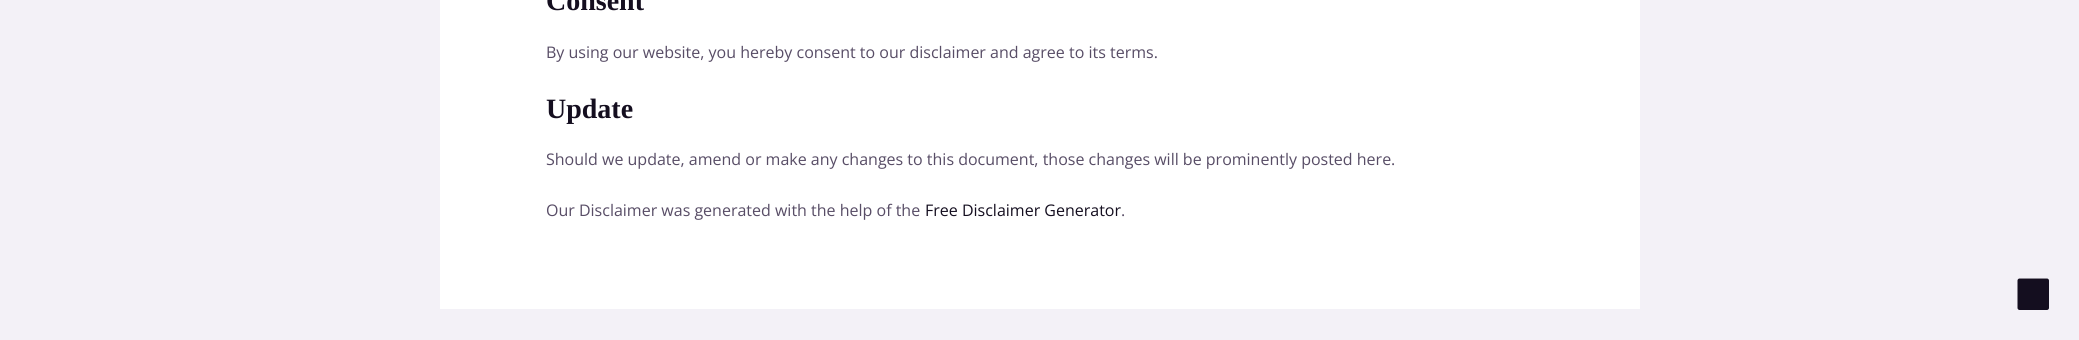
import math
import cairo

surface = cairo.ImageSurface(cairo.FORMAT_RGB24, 2079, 340)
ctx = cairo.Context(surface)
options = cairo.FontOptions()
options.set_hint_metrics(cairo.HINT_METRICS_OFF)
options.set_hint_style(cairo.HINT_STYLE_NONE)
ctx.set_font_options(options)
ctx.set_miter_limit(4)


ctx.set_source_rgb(0.953, 0.945, 0.965)
ctx.paint()
ctx.set_source_rgb(1, 1, 1)
ctx.rectangle(440, 0, 1200, 309)
ctx.fill()
ctx.select_font_face("Liberation Serif", cairo.FONT_SLANT_NORMAL, cairo.FONT_WEIGHT_BOLD)
ctx.set_font_size(28)
ctx.set_source_rgb(0.082, 0.055, 0.122)
ctx.move_to(546, 10)
ctx.show_text("Consent")
ctx.select_font_face("Open Sans")
ctx.set_font_size(16)
ctx.set_source_rgb(0.345, 0.302, 0.4)
ctx.move_to(546, 58)
ctx.show_text("By using our website, you hereby consent to our disclaimer and agree to its terms.")
ctx.select_font_face("Liberation Serif", cairo.FONT_SLANT_NORMAL, cairo.FONT_WEIGHT_BOLD)
ctx.set_font_size(28)
ctx.set_source_rgb(0.082, 0.055, 0.122)
ctx.move_to(546, 118)
ctx.show_text("Update")
ctx.select_font_face("Open Sans")
ctx.set_font_size(16)
ctx.set_source_rgb(0.345, 0.302, 0.4)
ctx.move_to(546, 165)
ctx.show_text("Should we update, amend or make any changes to this document, those changes will be prominently posted here.")
ctx.move_to(546, 216)
ctx.show_text("Our Disclaimer was generated with the help of the")
ctx.set_source_rgb(0.082, 0.055, 0.122)
ctx.move_to(925, 216)
ctx.show_text("Free Disclaimer Generator")
ctx.set_source_rgb(0.345, 0.302, 0.4)
ctx.move_to(1121, 216)
ctx.show_text(".")
ctx.set_source_rgb(0.082, 0.055, 0.122)
ctx.new_path()
ctx.move_to(2047, 310)
ctx.line_to(2019.5, 310)
ctx.curve_to(2018.5, 310, 2017.5, 309, 2017.5, 308)
ctx.line_to(2017.5, 280.5)
ctx.curve_to(2017.5, 279.5, 2018.5, 278.5, 2019.5, 278.5)
ctx.line_to(2047, 278.5)
ctx.curve_to(2048, 278.5, 2049, 279.5, 2049, 280.5)
ctx.line_to(2049, 308)
ctx.curve_to(2049, 309, 2048, 310, 2047, 310)
ctx.close_path()
ctx.fill()
surface.write_to_png("page.png")
